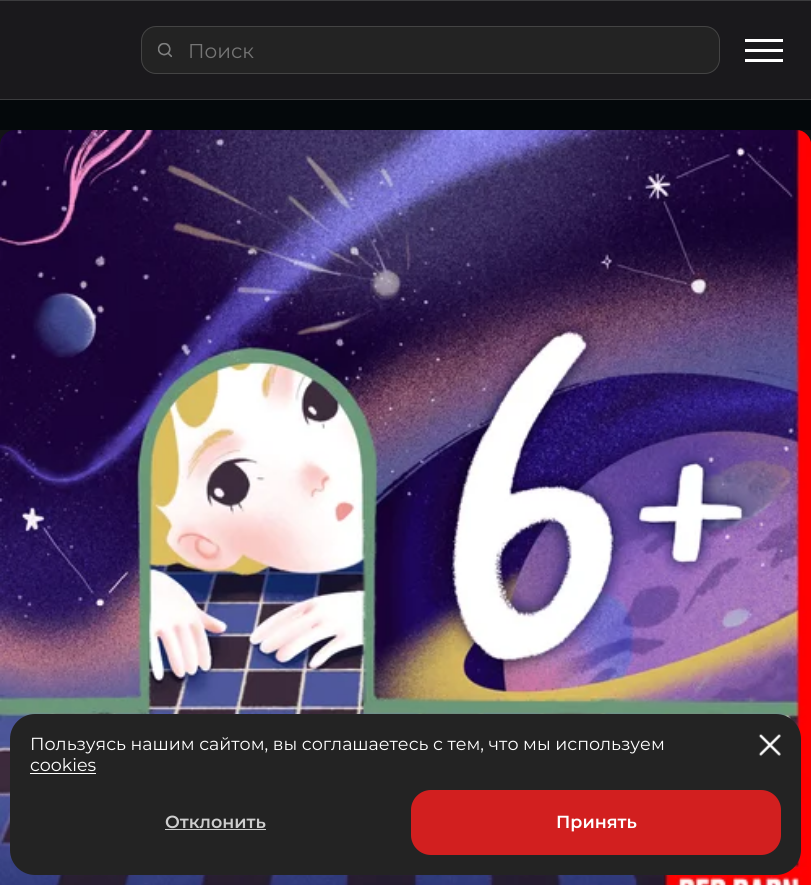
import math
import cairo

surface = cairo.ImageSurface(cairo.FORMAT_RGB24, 811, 885)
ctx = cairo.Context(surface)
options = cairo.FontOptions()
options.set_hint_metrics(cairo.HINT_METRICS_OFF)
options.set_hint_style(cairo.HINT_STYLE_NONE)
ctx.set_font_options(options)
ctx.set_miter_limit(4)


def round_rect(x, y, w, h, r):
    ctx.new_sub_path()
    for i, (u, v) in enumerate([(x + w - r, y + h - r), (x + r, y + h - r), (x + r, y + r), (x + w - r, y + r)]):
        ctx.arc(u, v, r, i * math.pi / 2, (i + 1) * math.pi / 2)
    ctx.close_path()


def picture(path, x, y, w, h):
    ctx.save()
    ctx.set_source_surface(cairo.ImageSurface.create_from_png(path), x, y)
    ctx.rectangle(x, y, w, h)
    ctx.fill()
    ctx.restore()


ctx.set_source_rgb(0.016, 0.035, 0.043)
ctx.paint()
ctx.set_source_rgb(0.102, 0.098, 0.11)
ctx.rectangle(0, 1, 811, 98)
ctx.fill()
ctx.set_source_rgb(0.235, 0.235, 0.243)
ctx.rectangle(0, 0, 811, 1)
ctx.fill()
ctx.rectangle(0, 99, 811, 1)
ctx.fill()
ctx.set_source_rgb(0.137, 0.137, 0.137)
round_rect(141, 26, 579, 48, 15)
ctx.fill()
round_rect(141.5, 26.5, 578, 47, 14.5)
ctx.set_source_rgba(1, 1, 1, 0.15)
ctx.set_line_width(1)
ctx.stroke()
picture("img1.png", 157, 42, 15, 16)
ctx.select_font_face("Montserrat")
ctx.set_font_size(20)
ctx.set_source_rgb(0.459, 0.459, 0.459)
ctx.move_to(188, 58)
ctx.show_text("Поиск")
ctx.set_source_rgb(1, 1, 1)
ctx.rectangle(745, 39, 38, 3)
ctx.fill()
ctx.rectangle(745, 49, 38, 3)
ctx.fill()
ctx.rectangle(745, 59, 38, 3)
ctx.fill()
ctx.set_source_rgb(0.075, 0.082, 0.086)
ctx.rectangle(0, 130, 811, 15)
ctx.fill()
picture("img2.png", 0, 130, 811, 755)
ctx.set_source_rgb(0.137, 0.137, 0.137)
round_rect(10, 714, 791, 161, 25)
ctx.fill()
ctx.set_font_size(17.5)
ctx.set_source_rgb(1, 1, 1)
ctx.move_to(30, 750)
ctx.show_text("Пользуясь нашим сайтом, вы соглашаетесь с тем, что мы используем")
ctx.move_to(30, 771)
ctx.show_text("cookies")
ctx.rectangle(30, 773, 66, 1)
ctx.fill()
picture("img3.png", 758, 734, 23, 22)
ctx.select_font_face("Montserrat SemiBold")
ctx.set_source_rgb(0.804, 0.804, 0.804)
ctx.move_to(165, 828)
ctx.show_text("Отклонить")
ctx.rectangle(165, 829, 101, 1)
ctx.fill()
ctx.set_source_rgb(0.824, 0.122, 0.122)
round_rect(411, 790, 370, 65, 20)
ctx.fill()
ctx.set_source_rgb(1, 1, 1)
ctx.move_to(556, 828)
ctx.show_text("Принять")
surface.write_to_png("page.png")
